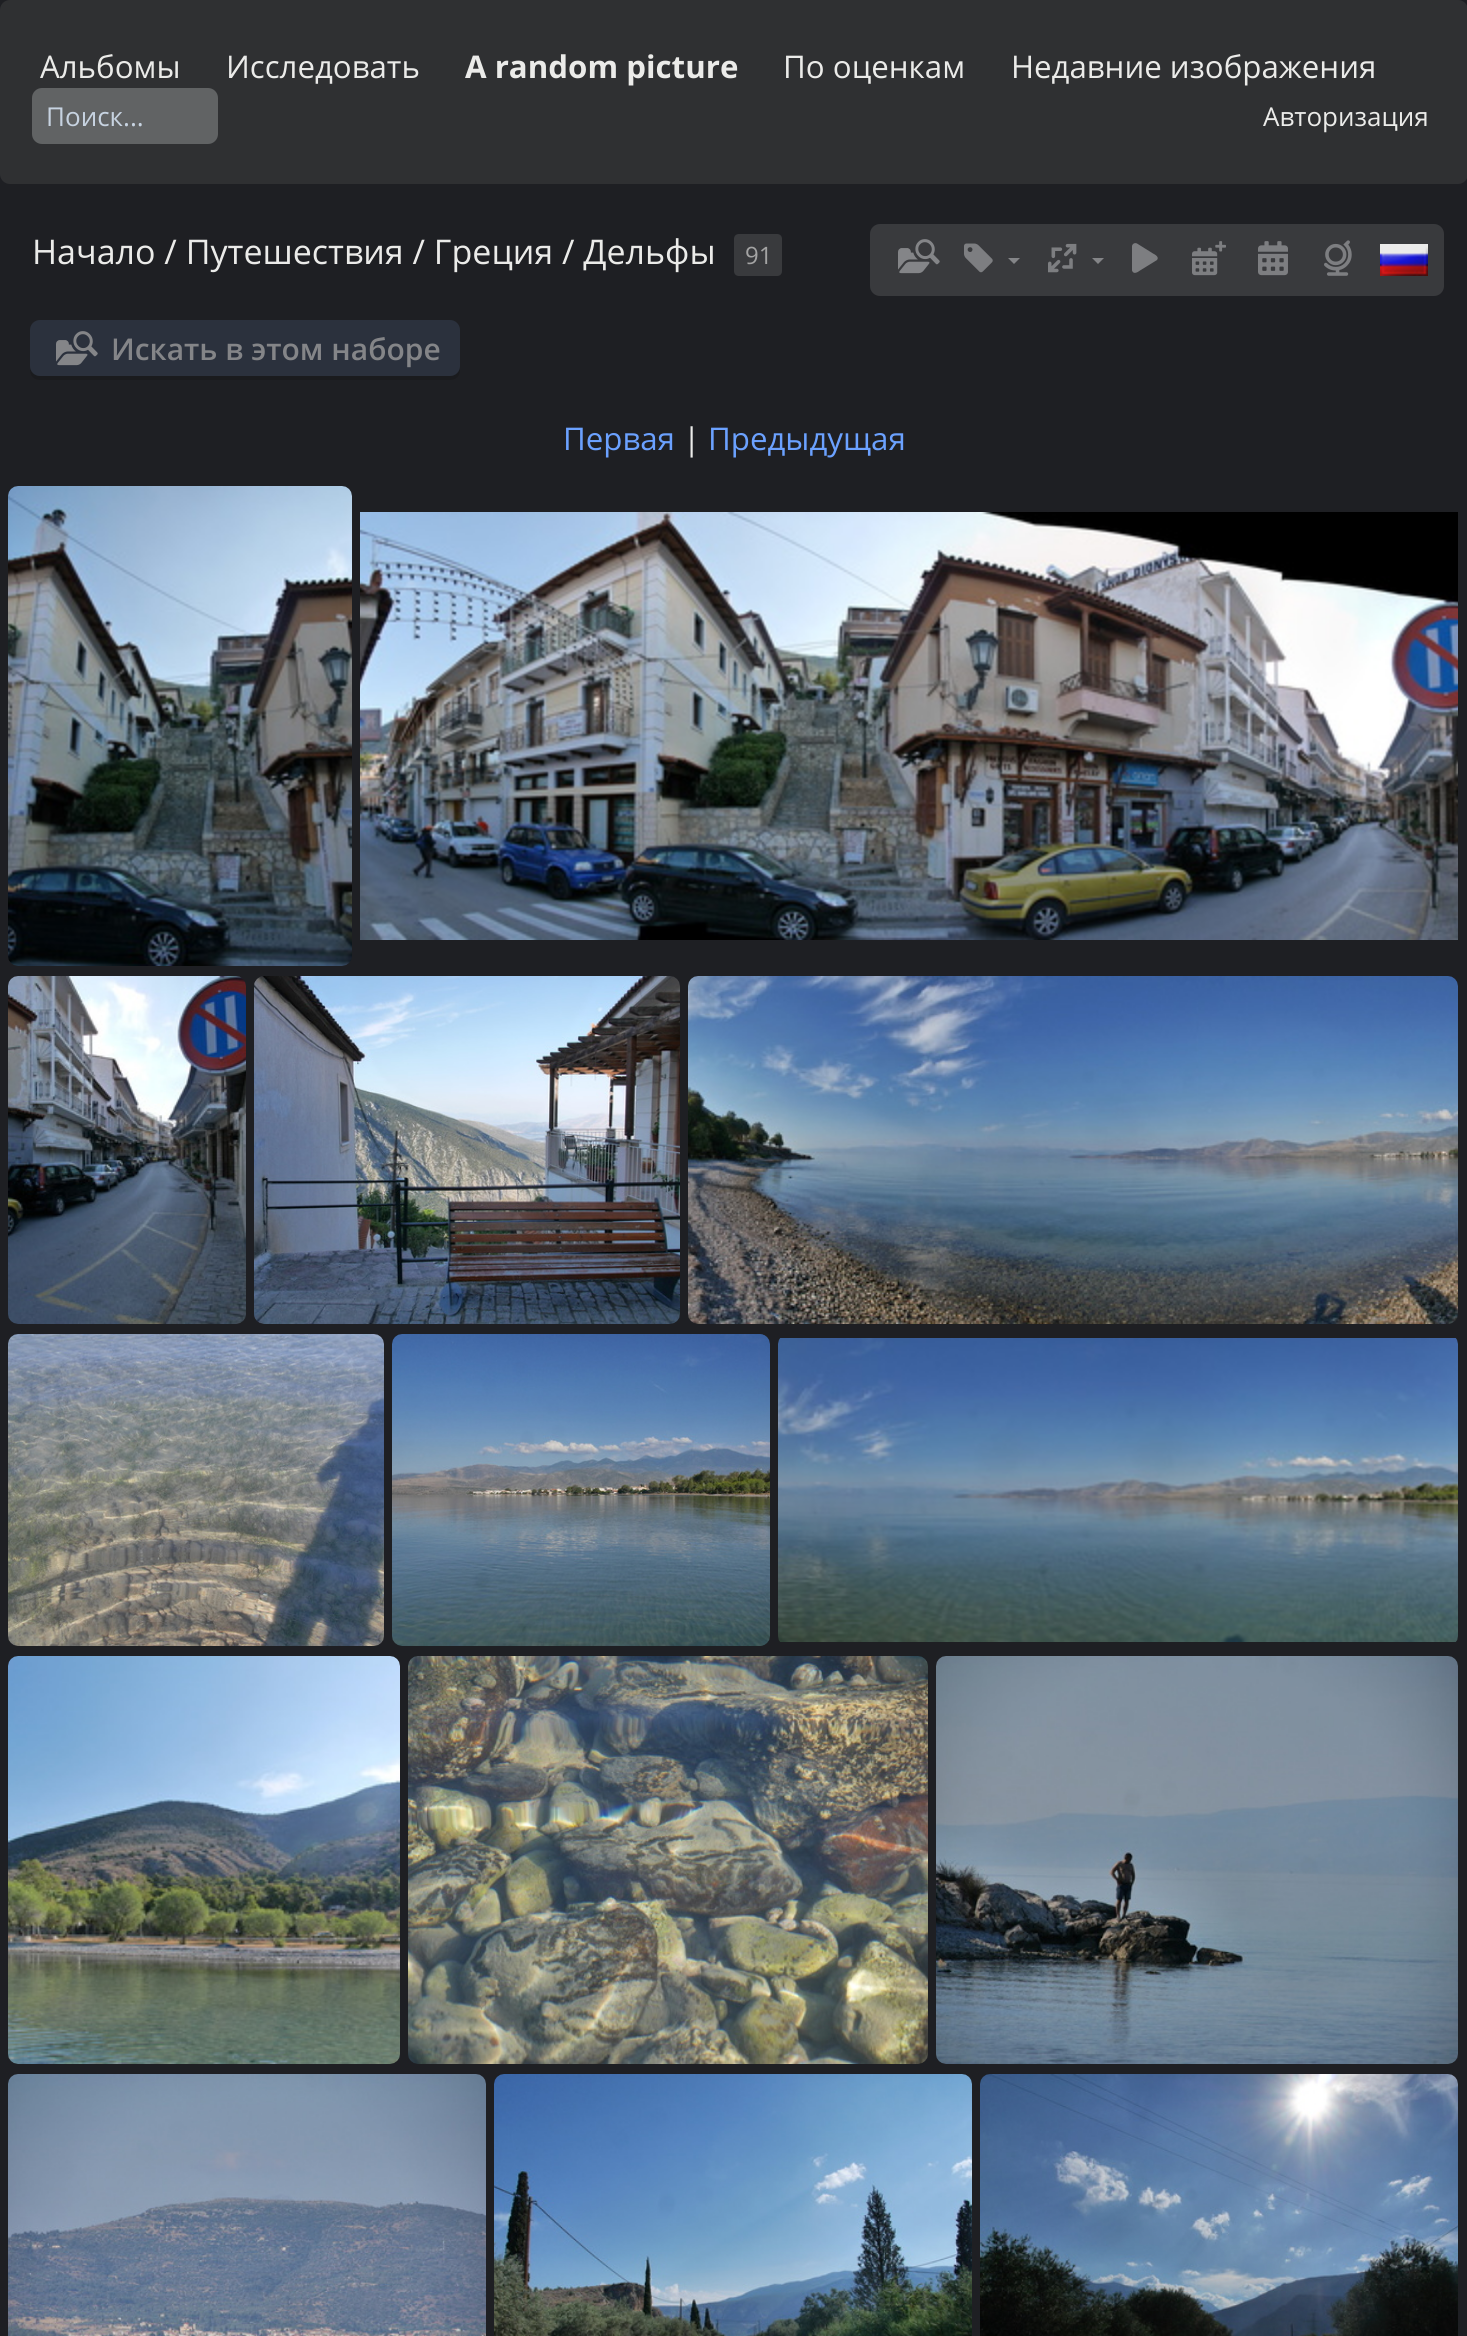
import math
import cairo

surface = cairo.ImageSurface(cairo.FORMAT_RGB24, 1467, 2336)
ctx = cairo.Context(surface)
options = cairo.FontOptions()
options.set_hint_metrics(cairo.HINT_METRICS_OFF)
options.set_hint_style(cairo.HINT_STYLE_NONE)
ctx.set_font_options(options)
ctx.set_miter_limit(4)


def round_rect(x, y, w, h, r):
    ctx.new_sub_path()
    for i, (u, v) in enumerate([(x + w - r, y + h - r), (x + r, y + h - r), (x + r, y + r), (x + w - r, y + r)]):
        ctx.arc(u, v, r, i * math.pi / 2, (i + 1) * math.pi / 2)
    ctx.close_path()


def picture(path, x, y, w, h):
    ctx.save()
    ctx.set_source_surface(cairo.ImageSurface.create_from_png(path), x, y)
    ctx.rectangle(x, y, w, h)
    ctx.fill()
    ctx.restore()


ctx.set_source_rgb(0.118, 0.122, 0.137)
ctx.paint()
ctx.set_source_rgb(0.184, 0.188, 0.196)
round_rect(0, 0, 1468, 184, 10)
ctx.fill()
ctx.select_font_face("Open Sans")
ctx.set_font_size(31.25)
ctx.set_source_rgb(0.918, 0.918, 0.914)
ctx.move_to(40, 78)
ctx.show_text("Альбомы")
ctx.move_to(226, 78)
ctx.show_text("Исследовать")
ctx.select_font_face("Open Sans", cairo.FONT_SLANT_NORMAL, cairo.FONT_WEIGHT_BOLD)
ctx.move_to(465, 78)
ctx.show_text("A random picture")
ctx.select_font_face("Open Sans")
ctx.move_to(783, 78)
ctx.show_text("По оценкам")
ctx.move_to(1011, 78)
ctx.show_text("Недавние изображения")
ctx.set_source_rgb(0.38, 0.388, 0.392)
round_rect(32, 88, 186, 56, 10)
ctx.fill()
ctx.set_font_size(26)
ctx.set_source_rgb(0.78, 0.827, 0.882)
ctx.move_to(46, 126)
ctx.show_text("Поиск...")
ctx.set_source_rgb(0.918, 0.918, 0.914)
ctx.move_to(1263, 126)
ctx.show_text("Авторизация")
ctx.set_font_size(34)
ctx.move_to(32, 264)
ctx.show_text("Начало / Путешествия / Греция / Дельфы")
ctx.set_source_rgb(0.224, 0.227, 0.239)
ctx.rectangle(744, 234, 28, 42)
ctx.fill()
ctx.set_font_size(24)
ctx.set_source_rgb(0.643, 0.643, 0.643)
ctx.move_to(745, 264)
ctx.show_text("91")
ctx.set_source_rgb(0.224, 0.227, 0.239)
ctx.new_path()
ctx.move_to(739, 234)
ctx.line_to(744, 234)
ctx.line_to(744, 276)
ctx.line_to(739, 276)
ctx.curve_to(736, 276, 734, 274, 734, 271)
ctx.line_to(734, 239)
ctx.curve_to(734, 236, 736, 234, 739, 234)
ctx.close_path()
ctx.fill()
ctx.new_path()
ctx.move_to(772, 234)
ctx.line_to(777, 234)
ctx.curve_to(780, 234, 782, 236, 782, 239)
ctx.line_to(782, 271)
ctx.curve_to(782, 274, 780, 276, 777, 276)
ctx.line_to(772, 276)
ctx.close_path()
ctx.fill()
round_rect(870, 224, 574, 72, 10)
ctx.fill()
picture("img1.png", 898, 239, 42, 35)
picture("img2.png", 964, 243, 29, 30)
ctx.set_source_rgb(0.518, 0.522, 0.533)
ctx.new_path()
ctx.move_to(1008, 258)
ctx.line_to(1020, 258)
ctx.line_to(1014, 264)
ctx.close_path()
ctx.fill()
picture("img3.png", 1048, 243, 29, 30)
ctx.new_path()
ctx.move_to(1092, 258)
ctx.line_to(1104, 258)
ctx.line_to(1098, 264)
ctx.close_path()
ctx.fill()
ctx.set_source_rgb(0.49, 0.494, 0.506)
ctx.new_path()
ctx.move_to(1137, 243.5)
ctx.curve_to(1135, 242.5, 1132.5, 243.5, 1132, 246)
ctx.line_to(1132, 270.5)
ctx.curve_to(1133.5, 275, 1138, 272, 1140, 270.5)
ctx.line_to(1157, 260)
ctx.curve_to(1159.5, 257, 1155, 254.5, 1153, 253.5)
ctx.close_path()
ctx.fill()
picture("img4.png", 1192, 241, 34, 35)
picture("img5.png", 1258, 241, 30, 35)
picture("img6.png", 1324, 240, 28, 36)
picture("img7.png", 1380, 244, 48, 32)
ctx.set_source_rgb(0.102, 0.106, 0.118)
ctx.new_path()
ctx.move_to(30, 366)
ctx.line_to(30, 370)
ctx.curve_to(30, 376, 34, 380, 40, 380)
ctx.line_to(450, 380)
ctx.curve_to(456, 380, 460, 376, 460, 370)
ctx.line_to(460, 366)
ctx.curve_to(460, 372, 456, 376, 450, 376)
ctx.line_to(40, 376)
ctx.curve_to(34, 376, 30, 372, 30, 366)
ctx.close_path()
ctx.fill()
ctx.set_source_rgb(0.169, 0.192, 0.239)
round_rect(30, 320, 430, 56, 10)
ctx.fill()
picture("img8.png", 56, 331, 42, 35)
ctx.select_font_face("Open Sans SemiBold")
ctx.set_font_size(30)
ctx.set_source_rgb(0.518, 0.522, 0.533)
ctx.move_to(111, 360)
ctx.show_text("Искать в этом наборе")
ctx.select_font_face("Open Sans")
ctx.set_font_size(31.25)
ctx.set_source_rgb(0.42, 0.631, 1)
ctx.move_to(563, 450)
ctx.show_text("Первая")
ctx.set_source_rgb(0.918, 0.918, 0.914)
ctx.move_to(683, 450)
ctx.show_text("|")
ctx.set_source_rgb(0.42, 0.631, 1)
ctx.move_to(708, 450)
ctx.show_text("Предыдущая")
picture("img9.png", 8, 486, 344, 480)
picture("img10.png", 360, 512, 1098, 428)
picture("img11.png", 8, 976, 238, 348)
picture("img12.png", 254, 976, 426, 348)
picture("img13.png", 688, 976, 770, 348)
picture("img14.png", 8, 1334, 376, 312)
picture("img15.png", 392, 1334, 378, 312)
picture("img16.png", 778, 1338, 680, 304)
picture("img17.png", 8, 1656, 392, 408)
picture("img18.png", 408, 1656, 520, 408)
picture("img19.png", 936, 1656, 522, 408)
picture("img20.png", 8, 2074, 478, 262)
picture("img21.png", 494, 2074, 478, 262)
picture("img22.png", 980, 2074, 478, 262)
surface.write_to_png("page.png")
